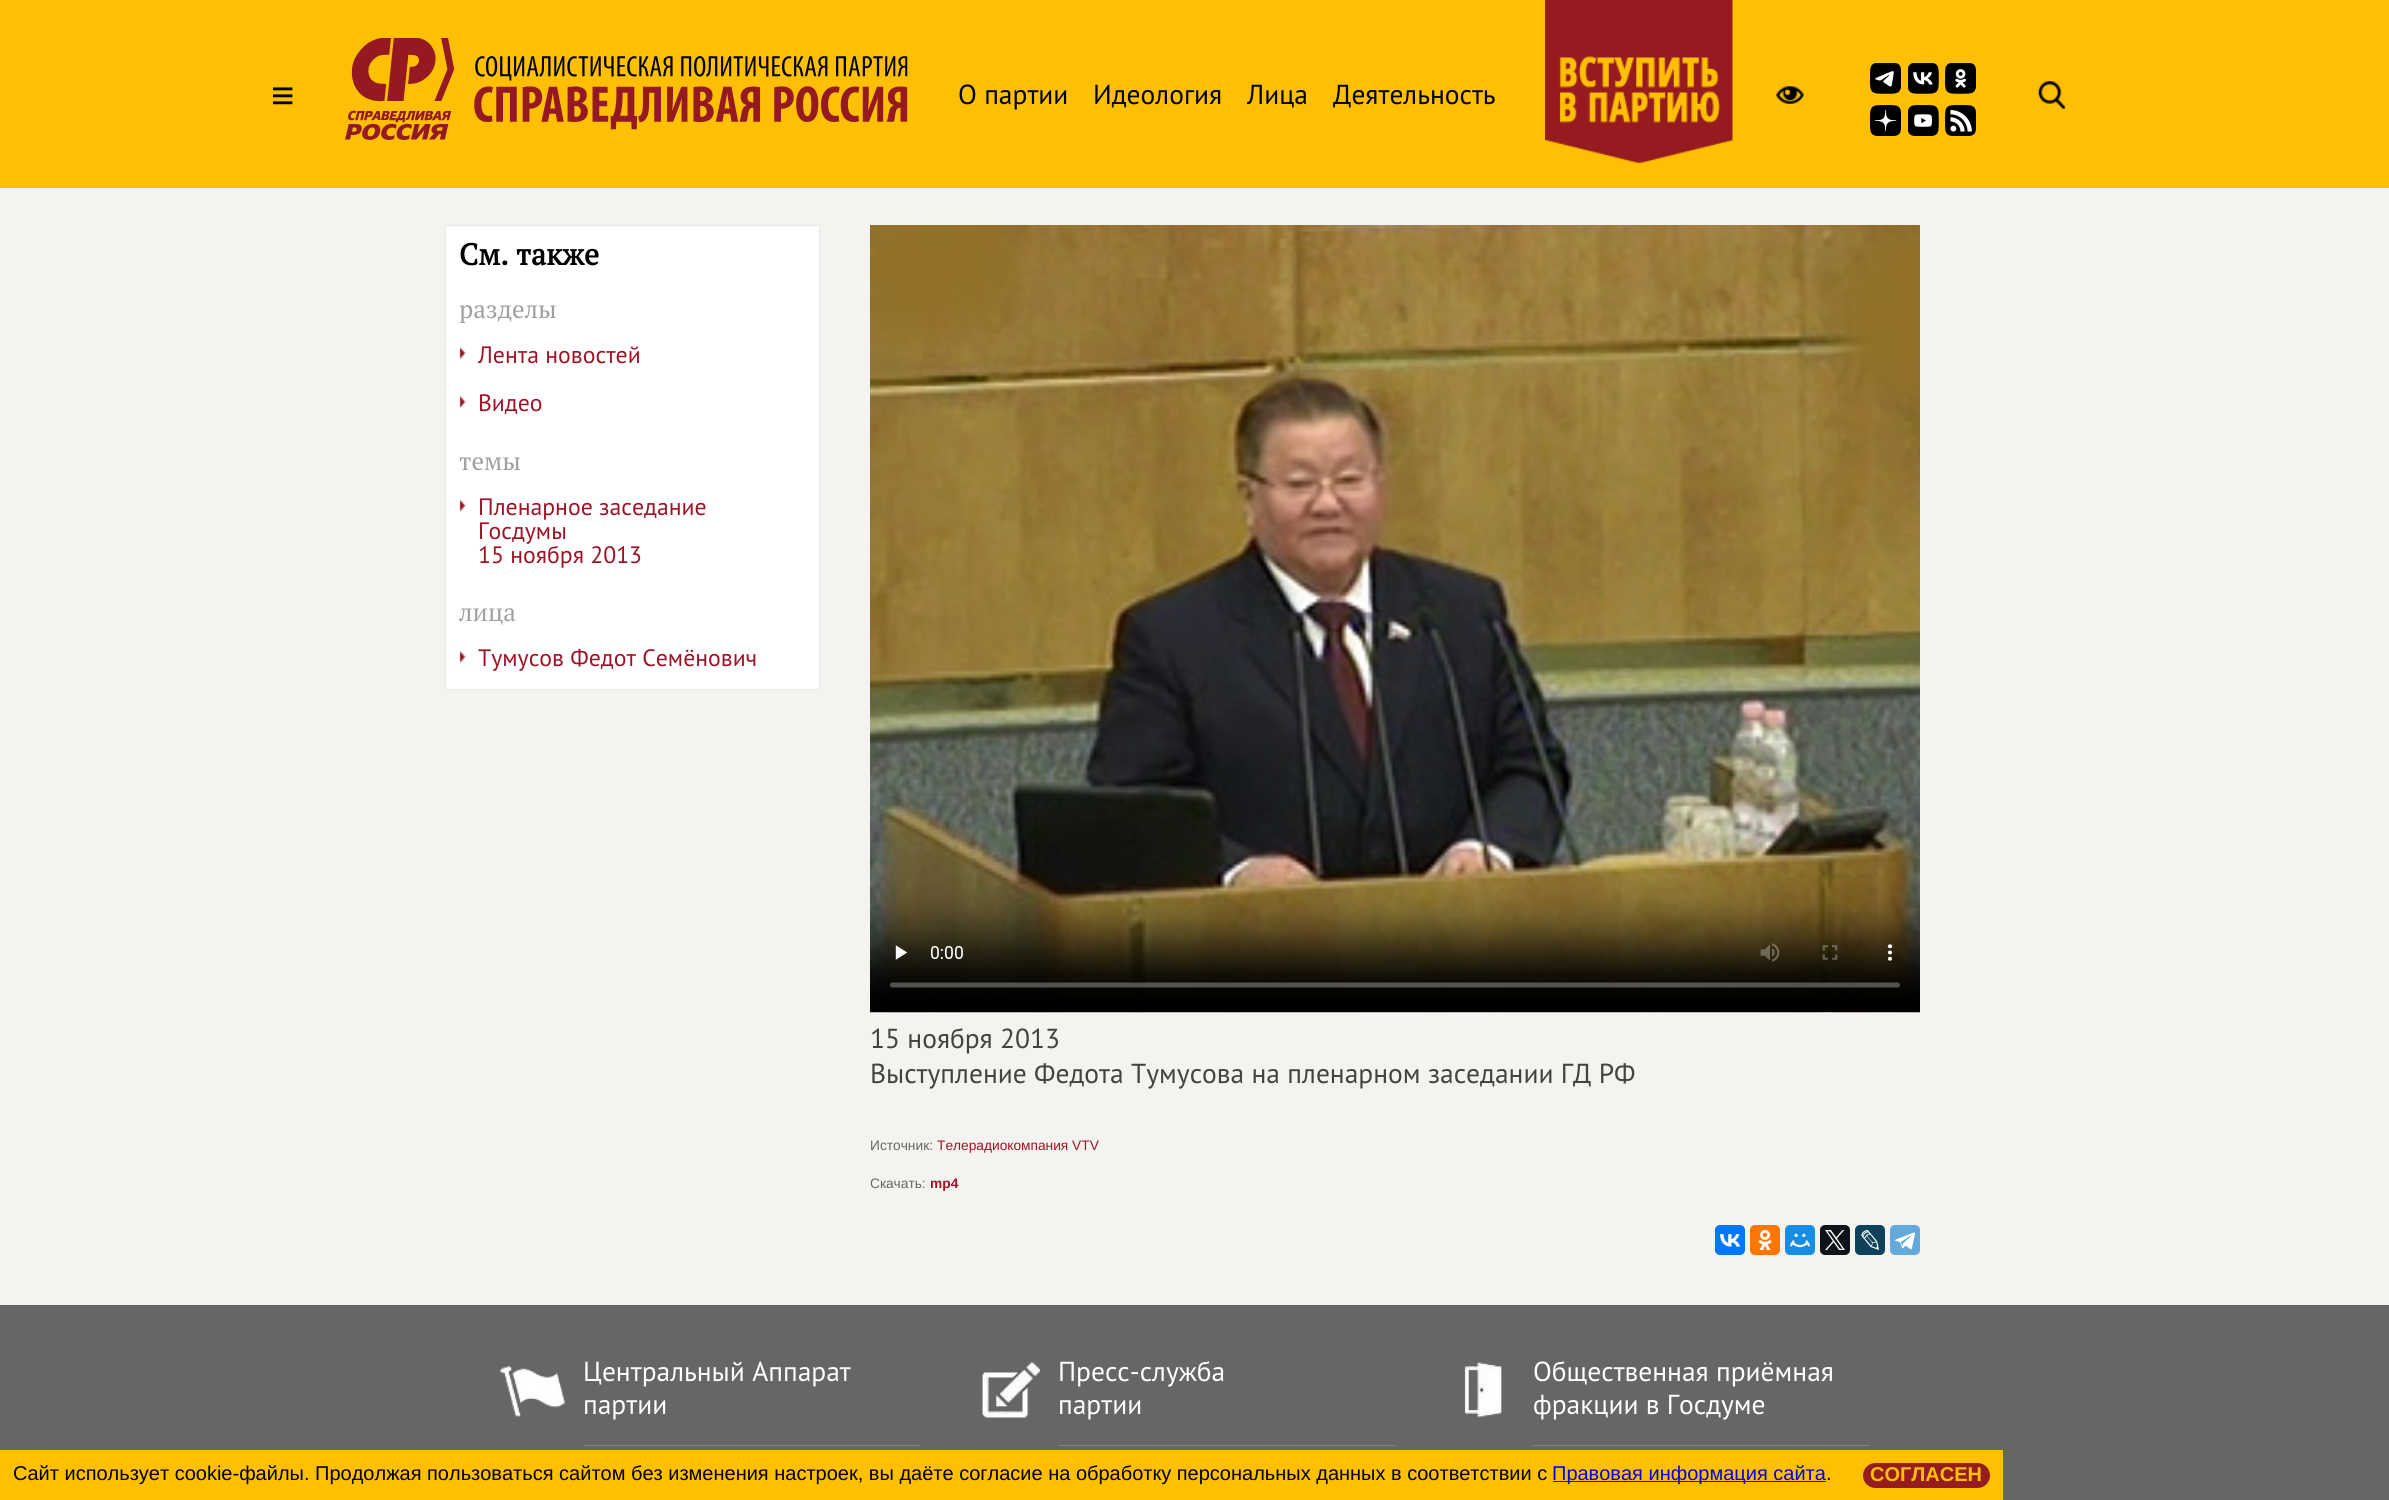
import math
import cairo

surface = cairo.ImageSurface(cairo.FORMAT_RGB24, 2389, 1500)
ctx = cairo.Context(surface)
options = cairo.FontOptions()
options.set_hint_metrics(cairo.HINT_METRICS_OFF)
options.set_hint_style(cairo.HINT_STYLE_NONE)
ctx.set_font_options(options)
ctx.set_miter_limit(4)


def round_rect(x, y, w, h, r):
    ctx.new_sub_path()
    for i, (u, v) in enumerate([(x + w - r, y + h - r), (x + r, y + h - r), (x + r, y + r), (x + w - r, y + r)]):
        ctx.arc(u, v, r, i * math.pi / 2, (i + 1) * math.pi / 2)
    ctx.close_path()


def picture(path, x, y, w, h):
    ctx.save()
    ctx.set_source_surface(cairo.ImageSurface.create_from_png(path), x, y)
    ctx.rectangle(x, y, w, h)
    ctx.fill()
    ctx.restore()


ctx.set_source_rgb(0.957, 0.953, 0.937)
ctx.paint()
ctx.set_source_rgb(1, 0.753, 0.012)
ctx.rectangle(0, 0, 2389, 188)
ctx.fill()
ctx.select_font_face("Liberation Sans")
ctx.set_font_size(40)
ctx.set_source_rgb(0, 0, 0)
ctx.move_to(271, 109)
ctx.show_text("≡")
picture("img1.png", 345, 38, 563, 102)
ctx.select_font_face("PT Sans")
ctx.set_font_size(27.5)
ctx.move_to(958, 104)
ctx.show_text("О партии")
ctx.move_to(1093, 104)
ctx.show_text("Идеология")
ctx.move_to(1247, 104)
ctx.show_text("Лица")
ctx.move_to(1333, 104)
ctx.show_text("Деятельность")
picture("img2.png", 1545, 0, 188, 164)
picture("img3.png", 1776, 86, 28, 18)
picture("img4.png", 1870, 63, 31, 31)
picture("img5.png", 1908, 63, 31, 31)
picture("img6.png", 1945, 63, 31, 31)
picture("img7.png", 1870, 105, 31, 31)
picture("img8.png", 1908, 105, 31, 31)
picture("img9.png", 1945, 105, 31, 31)
picture("img10.png", 2038, 81, 28, 28)
ctx.set_source_rgb(1, 1, 1)
ctx.rectangle(445.5, 225.5, 374, 464)
ctx.fill_preserve()
ctx.set_source_rgb(0.91, 0.91, 0.91)
ctx.set_line_width(1)
ctx.stroke()
ctx.select_font_face("PT Serif", cairo.FONT_SLANT_NORMAL, cairo.FONT_WEIGHT_BOLD)
ctx.set_font_size(30)
ctx.set_source_rgb(0, 0, 0)
ctx.move_to(459, 265)
ctx.show_text("См. также")
ctx.select_font_face("PT Serif")
ctx.set_font_size(25)
ctx.set_source_rgb(0.627, 0.627, 0.627)
ctx.move_to(459, 318)
ctx.show_text("разделы")
picture("img11.png", 459, 347, 7, 12)
ctx.select_font_face("PT Sans")
ctx.set_font_size(23.75)
ctx.set_source_rgb(0.62, 0.082, 0.153)
ctx.move_to(478, 363)
ctx.show_text("Лента новостей")
picture("img12.png", 459, 396, 7, 12)
ctx.move_to(478, 411)
ctx.show_text("Видео")
ctx.select_font_face("PT Serif")
ctx.set_font_size(25)
ctx.set_source_rgb(0.627, 0.627, 0.627)
ctx.move_to(459, 470)
ctx.show_text("темы")
picture("img13.png", 459, 499, 7, 13)
ctx.select_font_face("PT Sans")
ctx.set_font_size(23.75)
ctx.set_source_rgb(0.62, 0.082, 0.153)
ctx.move_to(478, 515)
ctx.show_text("Пленарное заседание")
ctx.move_to(478, 539)
ctx.show_text("Госдумы")
ctx.move_to(478, 563)
ctx.show_text("15 ноября 2013")
ctx.select_font_face("PT Serif")
ctx.set_font_size(25)
ctx.set_source_rgb(0.627, 0.627, 0.627)
ctx.move_to(459, 621)
ctx.show_text("лица")
picture("img12.png", 459, 651, 7, 12)
ctx.select_font_face("PT Sans")
ctx.set_font_size(23.75)
ctx.set_source_rgb(0.62, 0.082, 0.153)
ctx.move_to(478, 666)
ctx.show_text("Тумусов Федот Семёнович")
picture("img14.png", 870, 225, 1050, 788)
ctx.set_font_size(27.5)
ctx.set_source_rgb(0.267, 0.263, 0.247)
ctx.move_to(870, 1048)
ctx.show_text("15 ноября 2013")
ctx.move_to(870, 1083)
ctx.show_text("Выступление Федота Тумусова на пленарном заседании ГД РФ")
ctx.select_font_face("Liberation Sans")
ctx.set_font_size(13.75)
ctx.set_source_rgb(0.4, 0.4, 0.4)
ctx.move_to(870, 1150)
ctx.show_text("Источник:")
ctx.set_source_rgb(0.62, 0.082, 0.153)
ctx.move_to(937, 1150)
ctx.show_text("Телерадиокомпания VTV")
ctx.set_source_rgb(0.4, 0.4, 0.4)
ctx.move_to(870, 1188)
ctx.show_text("Скачать:")
ctx.select_font_face("Liberation Sans", cairo.FONT_SLANT_NORMAL, cairo.FONT_WEIGHT_BOLD)
ctx.set_source_rgb(0.62, 0.082, 0.153)
ctx.move_to(930, 1188)
ctx.show_text("mp4")
ctx.set_source_rgb(0, 0.467, 1)
round_rect(1715, 1225, 30, 30, 5)
ctx.fill()
picture("img15.png", 1720, 1234, 20, 13)
ctx.set_source_rgb(1, 0.467, 0)
round_rect(1750, 1225, 30, 30, 5)
ctx.fill()
picture("img16.png", 1758, 1230, 14, 20)
ctx.set_source_rgb(0.086, 0.553, 0.886)
round_rect(1785, 1225, 30, 30, 5)
ctx.fill()
picture("img17.png", 1790, 1233, 20, 15)
ctx.set_source_rgb(0.059, 0.078, 0.098)
round_rect(1820, 1225, 30, 30, 5)
ctx.fill()
picture("img18.png", 1825, 1230, 20, 20)
ctx.set_source_rgb(0.051, 0.259, 0.353)
round_rect(1855, 1225, 30, 30, 5)
ctx.fill()
picture("img19.png", 1861, 1230, 18, 20)
ctx.set_source_rgb(0.392, 0.663, 0.863)
round_rect(1890, 1225, 30, 30, 5)
ctx.fill()
picture("img20.png", 1895, 1232, 20, 18)
ctx.set_source_rgb(0.4, 0.4, 0.4)
ctx.rectangle(0, 1305, 2389, 195)
ctx.fill()
picture("img21.png", 499, 1366, 67, 51)
ctx.set_source_rgb(0.502, 0.502, 0.502)
ctx.rectangle(583, 1445, 337, 1)
ctx.fill()
ctx.select_font_face("PT Sans")
ctx.set_font_size(27.5)
ctx.set_source_rgb(1, 1, 1)
ctx.move_to(583, 1381)
ctx.show_text("Центральный Аппарат")
ctx.move_to(583, 1414)
ctx.show_text("партии")
picture("img22.png", 982, 1362, 59, 56)
ctx.set_source_rgb(0.502, 0.502, 0.502)
ctx.rectangle(1058, 1445, 337, 1)
ctx.fill()
ctx.set_source_rgb(1, 1, 1)
ctx.move_to(1058, 1381)
ctx.show_text("Пресс-служба")
ctx.move_to(1058, 1414)
ctx.show_text("партии")
picture("img23.png", 1464, 1361, 38, 57)
ctx.set_source_rgb(0.502, 0.502, 0.502)
ctx.rectangle(1533, 1445, 337, 1)
ctx.fill()
ctx.set_source_rgb(1, 1, 1)
ctx.move_to(1533, 1381)
ctx.show_text("Общественная приёмная")
ctx.move_to(1533, 1414)
ctx.show_text("фракции в Госдуме")
ctx.set_source_rgb(1, 0.753, 0.008)
ctx.rectangle(0, 1450, 2003, 50)
ctx.fill()
ctx.select_font_face("Liberation Sans")
ctx.set_font_size(20)
ctx.set_source_rgb(0, 0, 0)
ctx.move_to(13, 1480)
ctx.show_text("Сайт использует cookie-файлы. Продолжая пользоваться сайтом без изменения настроек, вы даёте согласие на обработку персональных данных в соответствии с")
ctx.set_source_rgb(0, 0, 0.933)
ctx.rectangle(1553, 1481, 273, 1)
ctx.fill()
ctx.move_to(1552, 1480)
ctx.show_text("Правовая информация сайта")
ctx.set_source_rgb(0, 0, 0)
ctx.move_to(1826, 1480)
ctx.show_text(".")
ctx.set_source_rgb(0.588, 0.11, 0.125)
round_rect(1863, 1463, 127, 25, 12.5)
ctx.fill()
ctx.select_font_face("Liberation Sans", cairo.FONT_SLANT_NORMAL, cairo.FONT_WEIGHT_BOLD)
ctx.set_source_rgb(1, 0.753, 0.008)
ctx.move_to(1870, 1481)
ctx.show_text("СОГЛАСЕН")
surface.write_to_png("page.png")
